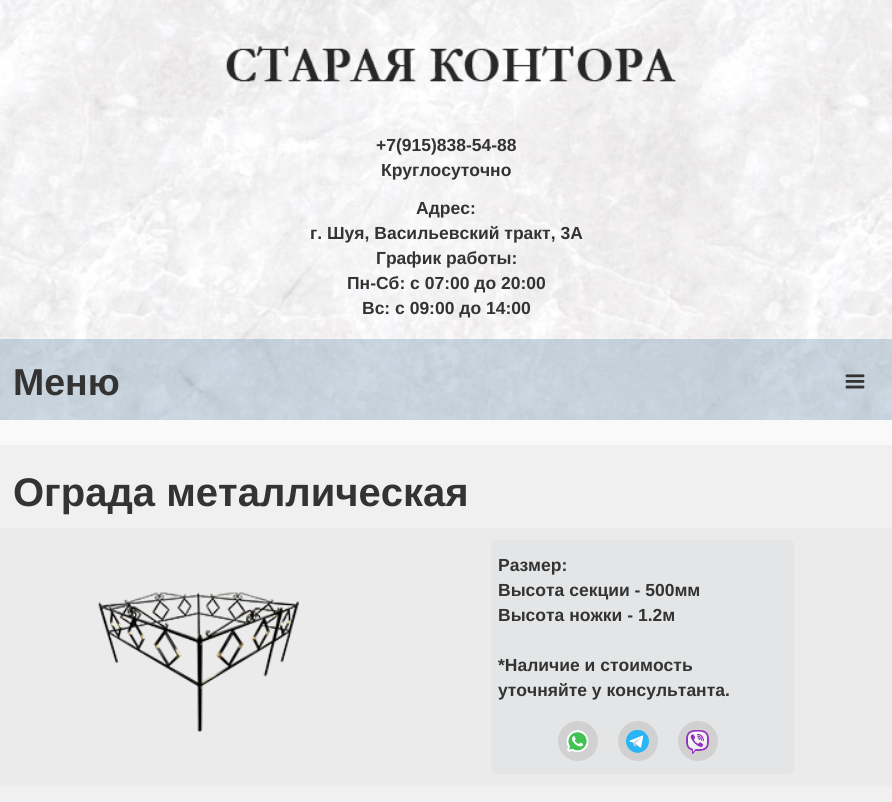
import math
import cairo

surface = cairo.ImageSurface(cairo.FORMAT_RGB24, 892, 802)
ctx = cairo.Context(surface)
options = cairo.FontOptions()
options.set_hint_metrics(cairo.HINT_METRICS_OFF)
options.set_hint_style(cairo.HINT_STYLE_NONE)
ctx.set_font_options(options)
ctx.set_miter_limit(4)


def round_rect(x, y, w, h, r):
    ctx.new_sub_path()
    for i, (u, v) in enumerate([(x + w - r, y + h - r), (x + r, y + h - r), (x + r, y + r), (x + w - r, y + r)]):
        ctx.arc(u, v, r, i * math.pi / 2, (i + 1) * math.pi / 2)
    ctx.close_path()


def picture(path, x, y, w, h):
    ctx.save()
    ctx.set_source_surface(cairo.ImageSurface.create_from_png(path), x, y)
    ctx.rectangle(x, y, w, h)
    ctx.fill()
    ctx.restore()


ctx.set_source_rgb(0.973, 0.973, 0.973)
ctx.paint()
picture("img1.png", 0, 0, 892, 420)
picture("img2.png", 226, 46, 450, 36)
ctx.select_font_face("Liberation Sans", cairo.FONT_SLANT_NORMAL, cairo.FONT_WEIGHT_BOLD)
ctx.set_font_size(17.5)
ctx.set_source_rgb(0.2, 0.2, 0.2)
ctx.move_to(376, 151)
ctx.show_text("+7(915)838-54-88")
ctx.move_to(381, 176)
ctx.show_text("Круглосуточно")
ctx.move_to(416, 214)
ctx.show_text("Адрес:")
ctx.move_to(310, 239)
ctx.show_text("г. Шуя, Васильевский тракт, 3А")
ctx.move_to(376, 264)
ctx.show_text("График работы:")
ctx.move_to(347, 289)
ctx.show_text("Пн-Сб: с 07:00 до 20:00")
ctx.move_to(362, 314)
ctx.show_text("Вс: с 09:00 до 14:00")
ctx.set_source_rgba(0.451, 0.584, 0.682, 0.35)
ctx.rectangle(0, 339, 892, 6)
ctx.fill()
ctx.rectangle(0, 345, 892, 75)
ctx.fill()
ctx.set_font_size(37.5)
ctx.set_source_rgb(0.2, 0.2, 0.2)
ctx.move_to(13, 395)
ctx.show_text("Меню")
picture("img3.png", 845, 374, 20, 15)
ctx.set_source_rgb(0.941, 0.941, 0.941)
ctx.rectangle(0, 445, 892, 357)
ctx.fill()
ctx.set_font_size(40)
ctx.set_source_rgb(0.2, 0.2, 0.2)
ctx.move_to(13, 506)
ctx.show_text("Ограда металлическая")
ctx.set_source_rgb(0.918, 0.918, 0.918)
ctx.rectangle(0, 528, 892, 258)
ctx.fill()
picture("img4.png", 98, 592, 201, 140)
ctx.set_source_rgb(0.89, 0.898, 0.902)
round_rect(491, 540, 303, 234, 5)
ctx.fill()
ctx.set_font_size(17.5)
ctx.set_source_rgb(0.2, 0.2, 0.2)
ctx.move_to(498, 571)
ctx.show_text("Размер:")
ctx.move_to(498, 596)
ctx.show_text("Высота секции - 500мм")
ctx.move_to(498, 621)
ctx.show_text("Высота ножки - 1.2м")
ctx.move_to(498, 671)
ctx.show_text("*Наличие и стоимость")
ctx.move_to(498, 696)
ctx.show_text("уточняйте у консультанта.")
ctx.set_source_rgb(0.82, 0.82, 0.82)
ctx.new_path()
ctx.arc(578, 741, 20, 0, 2 * math.pi)
ctx.fill()
picture("img5.png", 566, 730, 23, 23)
ctx.arc(638, 741, 20, 0, 2 * math.pi)
ctx.fill()
picture("img6.png", 626, 730, 23, 23)
ctx.arc(698, 741, 20, 0, 2 * math.pi)
ctx.fill()
picture("img7.png", 686, 730, 23, 24)
surface.write_to_png("page.png")
